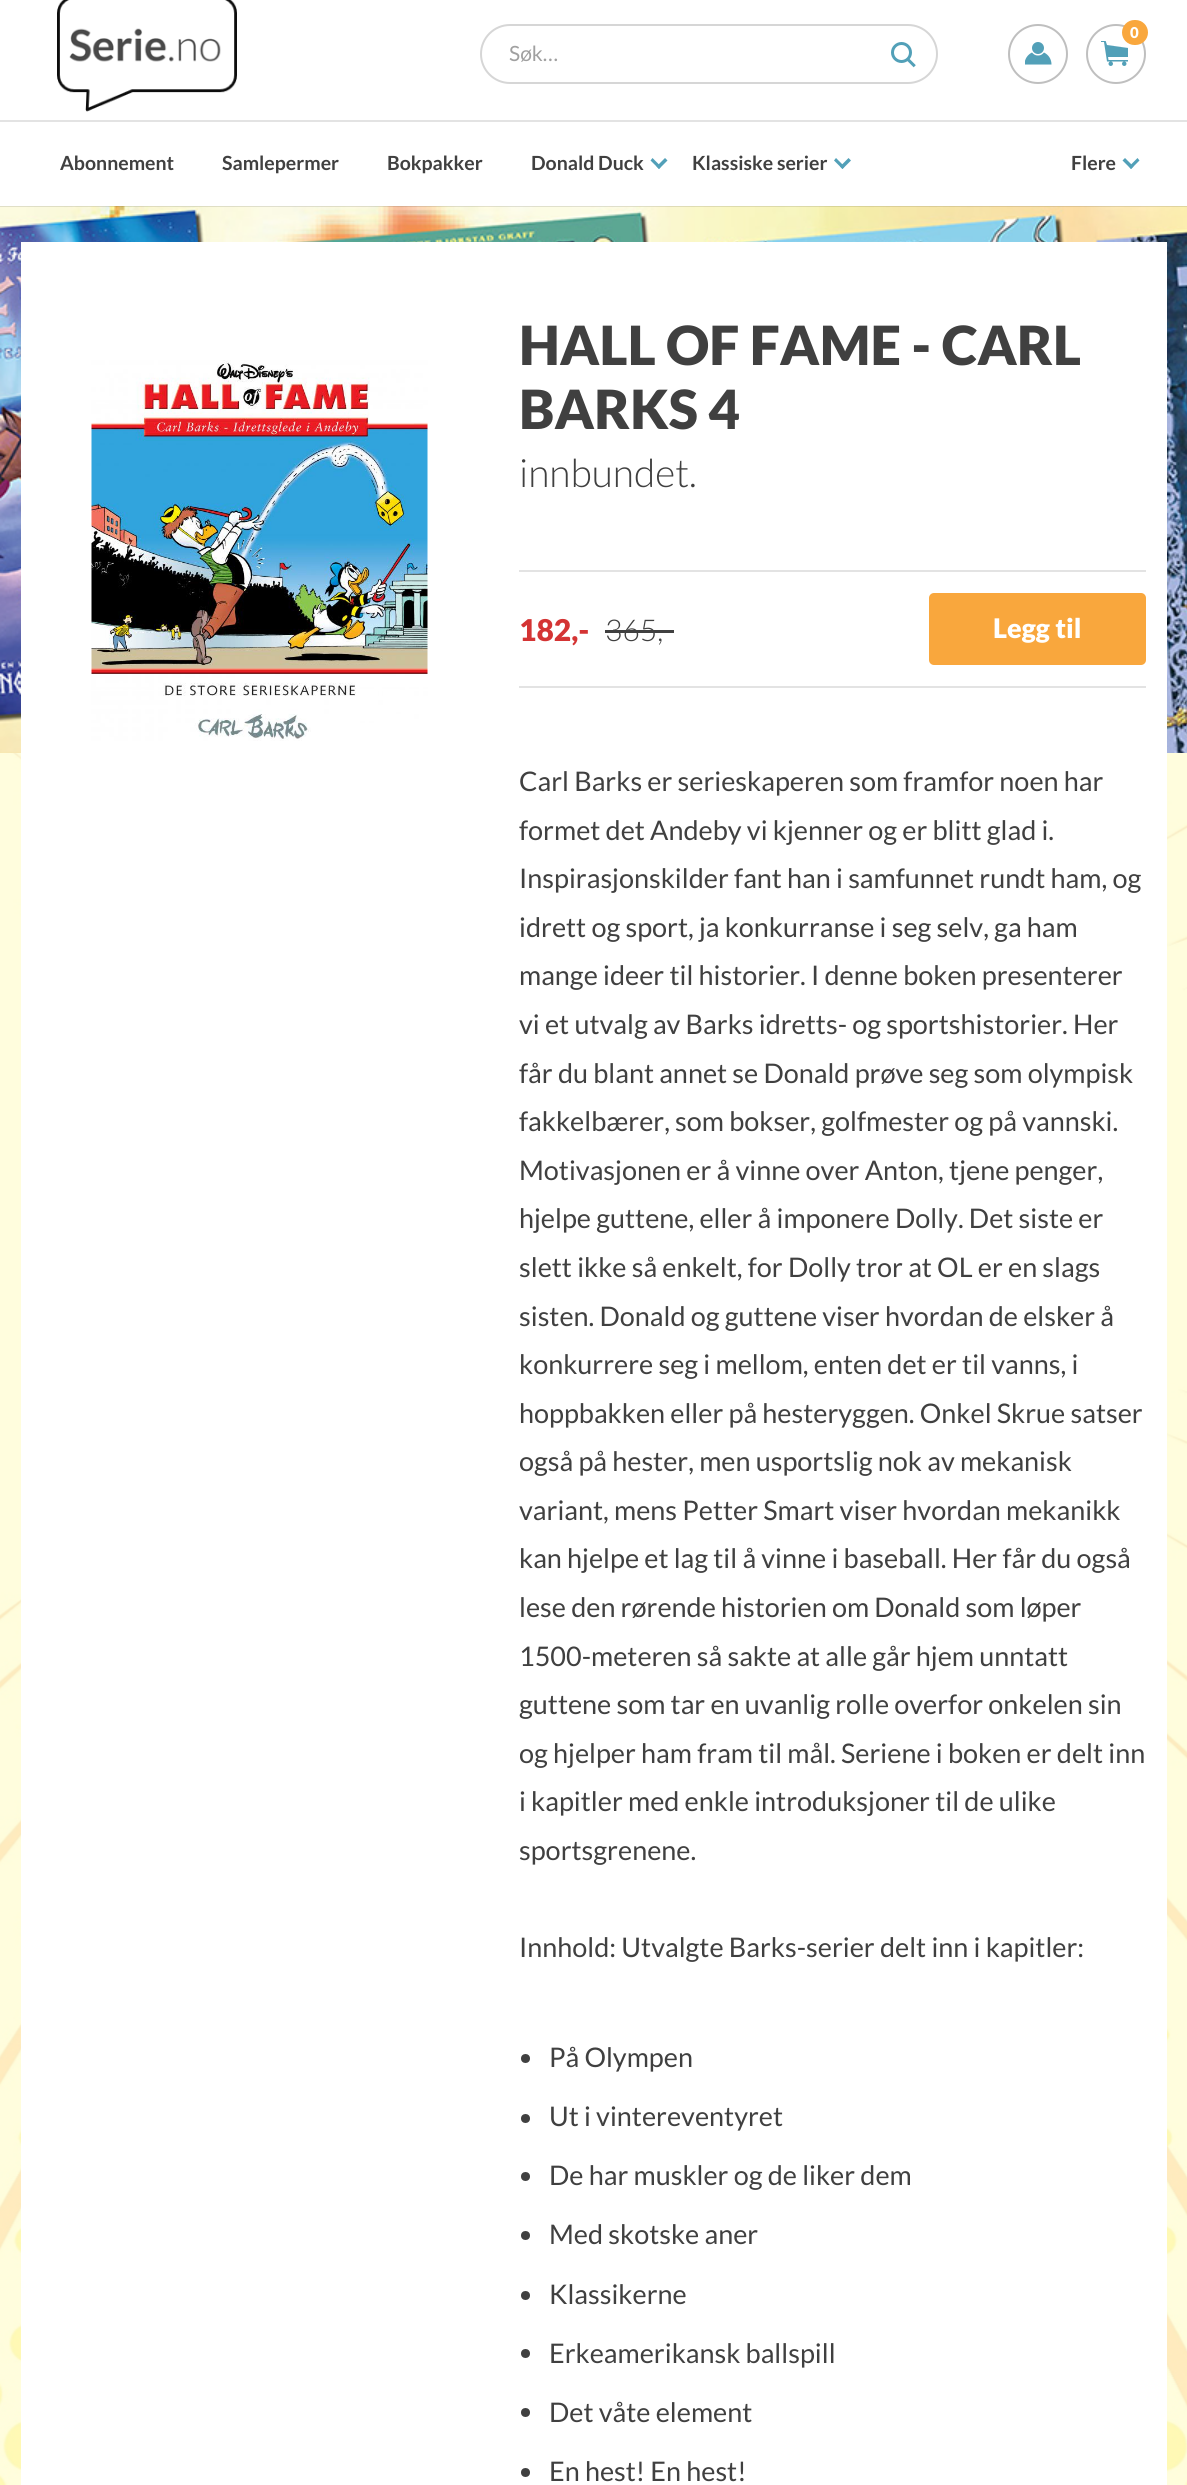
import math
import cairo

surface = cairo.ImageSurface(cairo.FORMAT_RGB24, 1187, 2485)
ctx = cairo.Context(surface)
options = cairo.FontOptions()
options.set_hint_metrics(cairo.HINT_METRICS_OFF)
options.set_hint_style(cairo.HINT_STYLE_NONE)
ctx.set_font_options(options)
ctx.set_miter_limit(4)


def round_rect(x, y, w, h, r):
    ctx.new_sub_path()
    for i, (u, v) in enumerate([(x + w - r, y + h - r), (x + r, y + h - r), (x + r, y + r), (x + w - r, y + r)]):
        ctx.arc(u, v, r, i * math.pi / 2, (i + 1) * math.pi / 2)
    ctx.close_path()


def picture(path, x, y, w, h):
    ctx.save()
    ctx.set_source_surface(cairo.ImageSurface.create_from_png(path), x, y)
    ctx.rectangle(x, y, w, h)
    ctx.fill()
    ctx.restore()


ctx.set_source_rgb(1, 1, 1)
ctx.paint()
ctx.set_source_rgb(0.89, 0.89, 0.89)
ctx.rectangle(0, 120, 1187, 2)
ctx.fill()
picture("img1.png", 57, 0, 180, 112)
ctx.arc(1038, 54, 29, 0, 2 * math.pi)
ctx.set_source_rgb(0.749, 0.749, 0.749)
ctx.stroke()
picture("img2.png", 1025, 42, 27, 23)
ctx.arc(1116, 54, 29, 0, 2 * math.pi)
ctx.stroke()
picture("img3.png", 1101, 41, 27, 25)
ctx.set_source_rgb(0.973, 0.655, 0.239)
round_rect(1122, 20, 26, 25, 12.5)
ctx.fill()
ctx.select_font_face("Lato Black")
ctx.set_font_size(15)
ctx.set_source_rgb(1, 1, 1)
ctx.move_to(1130, 38)
ctx.show_text("0")
picture("img6.png", 0, 206, 1187, 547)
ctx.set_source_rgba(0, 0, 0, 0.11)
ctx.rectangle(0, 206, 1187, 1)
ctx.fill()
round_rect(481, 25, 456, 58, 29)
ctx.set_source_rgb(0.839, 0.839, 0.839)
ctx.stroke()
ctx.select_font_face("Lato")
ctx.set_font_size(21)
ctx.set_source_rgb(0.627, 0.627, 0.627)
ctx.move_to(509, 61)
ctx.show_text("Søk…")
picture("img4.png", 891, 42, 25, 26)
ctx.select_font_face("Lato", cairo.FONT_SLANT_NORMAL, cairo.FONT_WEIGHT_BOLD)
ctx.set_font_size(19.5)
ctx.set_source_rgb(0.251, 0.251, 0.251)
ctx.move_to(60, 170)
ctx.show_text("Abonnement")
ctx.move_to(222, 170)
ctx.show_text("Samlepermer")
ctx.move_to(387, 170)
ctx.show_text("Bokpakker")
ctx.move_to(531, 170)
ctx.show_text("Donald Duck")
ctx.set_source_rgb(0.322, 0.627, 0.722)
ctx.new_path()
ctx.move_to(659, 169)
ctx.line_to(650.5, 160.5)
ctx.line_to(652.5, 158)
ctx.line_to(661, 166.5)
ctx.close_path()
ctx.fill()
ctx.new_path()
ctx.move_to(659, 169)
ctx.line_to(656.5, 166.5)
ctx.line_to(665, 158)
ctx.line_to(667.5, 160.5)
ctx.close_path()
ctx.fill()
ctx.set_source_rgb(0.251, 0.251, 0.251)
ctx.move_to(692, 170)
ctx.show_text("Klassiske serier")
ctx.set_source_rgb(0.322, 0.627, 0.722)
ctx.new_path()
ctx.move_to(842.5, 169)
ctx.line_to(834, 160.5)
ctx.line_to(836, 158)
ctx.line_to(844.5, 166.5)
ctx.close_path()
ctx.fill()
ctx.new_path()
ctx.move_to(842.5, 169)
ctx.line_to(840, 166.5)
ctx.line_to(848.5, 158)
ctx.line_to(851, 160.5)
ctx.close_path()
ctx.fill()
ctx.set_source_rgb(0.251, 0.251, 0.251)
ctx.move_to(1071, 170)
ctx.show_text("Flere")
ctx.set_source_rgb(0.322, 0.627, 0.722)
ctx.new_path()
ctx.move_to(1131, 169)
ctx.line_to(1122.5, 160.5)
ctx.line_to(1125, 158)
ctx.line_to(1133.5, 166.5)
ctx.close_path()
ctx.fill()
ctx.new_path()
ctx.move_to(1131, 169)
ctx.line_to(1129, 166.5)
ctx.line_to(1137.5, 158)
ctx.line_to(1139.5, 160.5)
ctx.close_path()
ctx.fill()
picture("img5.png", 0, 753, 1187, 1732)
ctx.set_source_rgb(1, 1, 1)
ctx.rectangle(21, 242, 1146, 2243)
ctx.fill()
picture("img7.png", 91, 360, 337, 381)
ctx.select_font_face("Lato Black")
ctx.set_font_size(54)
ctx.set_source_rgb(0.251, 0.251, 0.251)
ctx.move_to(519, 365)
ctx.show_text("HALL OF FAME - CARL")
ctx.move_to(519, 429)
ctx.show_text("BARKS 4")
ctx.select_font_face("Lato Light")
ctx.set_font_size(39)
ctx.move_to(519, 487)
ctx.show_text("innbundet.")
ctx.set_source_rgb(0.89, 0.89, 0.89)
ctx.rectangle(519, 570, 627, 2)
ctx.fill()
ctx.rectangle(519, 686, 627, 2)
ctx.fill()
ctx.select_font_face("Lato Black")
ctx.set_font_size(30)
ctx.set_source_rgb(0.831, 0.204, 0.204)
ctx.move_to(519, 641)
ctx.show_text("182,-")
ctx.select_font_face("Lato Light")
ctx.set_source_rgb(0.251, 0.251, 0.251)
ctx.move_to(605, 641)
ctx.show_text("365,")
ctx.rectangle(605, 630, 69, 3)
ctx.fill()
ctx.set_source_rgb(0.973, 0.655, 0.239)
round_rect(929, 593, 217, 72, 5)
ctx.fill()
ctx.select_font_face("Lato Black")
ctx.set_font_size(27)
ctx.set_source_rgb(1, 1, 1)
ctx.move_to(993, 638)
ctx.show_text("Legg til")
ctx.select_font_face("Lato")
ctx.set_source_rgb(0.251, 0.251, 0.251)
ctx.move_to(519, 791)
ctx.show_text("Carl Barks er serieskaperen som framfor noen har")
ctx.move_to(519, 840)
ctx.show_text("formet det Andeby vi kjenner og er blitt glad i.")
ctx.move_to(519, 888)
ctx.show_text("Inspirasjonskilder fant han i samfunnet rundt ham, og")
ctx.move_to(519, 937)
ctx.show_text("idrett og sport, ja konkurranse i seg selv, ga ham")
ctx.move_to(519, 985)
ctx.show_text("mange ideer til historier. I denne boken presenterer")
ctx.move_to(519, 1034)
ctx.show_text("vi et utvalg av Barks idretts- og sportshistorier. Her")
ctx.move_to(519, 1083)
ctx.show_text("får du blant annet se Donald prøve seg som olympisk")
ctx.move_to(519, 1131)
ctx.show_text("fakkelbærer, som bokser, golfmester og på vannski.")
ctx.move_to(519, 1180)
ctx.show_text("Motivasjonen er å vinne over Anton, tjene penger,")
ctx.move_to(519, 1228)
ctx.show_text("hjelpe guttene, eller å imponere Dolly. Det siste er")
ctx.move_to(519, 1277)
ctx.show_text("slett ikke så enkelt, for Dolly tror at OL er en slags")
ctx.move_to(519, 1326)
ctx.show_text("sisten. Donald og guttene viser hvordan de elsker å")
ctx.move_to(519, 1374)
ctx.show_text("konkurrere seg i mellom, enten det er til vanns, i")
ctx.move_to(519, 1423)
ctx.show_text("hoppbakken eller på hesteryggen. Onkel Skrue satser")
ctx.move_to(519, 1471)
ctx.show_text("også på hester, men usportslig nok av mekanisk")
ctx.move_to(519, 1520)
ctx.show_text("variant, mens Petter Smart viser hvordan mekanikk")
ctx.move_to(519, 1568)
ctx.show_text("kan hjelpe et lag til å vinne i baseball. Her får du også")
ctx.move_to(519, 1617)
ctx.show_text("lese den rørende historien om Donald som løper")
ctx.move_to(519, 1666)
ctx.show_text("1500-meteren så sakte at alle går hjem unntatt")
ctx.move_to(519, 1714)
ctx.show_text("guttene som tar en uvanlig rolle overfor onkelen sin")
ctx.move_to(519, 1763)
ctx.show_text("og hjelper ham fram til mål. Seriene i boken er delt inn")
ctx.move_to(519, 1811)
ctx.show_text("i kapitler med enkle introduksjoner til de ulike")
ctx.move_to(519, 1860)
ctx.show_text("sportsgrenene.")
ctx.move_to(519, 1957)
ctx.show_text("Innhold: Utvalgte Barks-serier delt inn i kapitler:")
ctx.new_path()
ctx.arc(525.5, 2058.5, 4.5, 0, 2 * math.pi)
ctx.fill()
ctx.move_to(549, 2067)
ctx.show_text("På Olympen")
ctx.new_path()
ctx.arc(525.5, 2118.5, 4.5, 0, 2 * math.pi)
ctx.fill()
ctx.move_to(549, 2126)
ctx.show_text("Ut i vintereventyret")
ctx.new_path()
ctx.arc(525.5, 2176.5, 4.5, 0, 2 * math.pi)
ctx.fill()
ctx.move_to(549, 2185)
ctx.show_text("De har muskler og de liker dem")
ctx.new_path()
ctx.arc(525.5, 2235.5, 4.5, 0, 2 * math.pi)
ctx.fill()
ctx.move_to(549, 2244)
ctx.show_text("Med skotske aner")
ctx.new_path()
ctx.arc(525.5, 2295.5, 4.5, 0, 2 * math.pi)
ctx.fill()
ctx.move_to(549, 2304)
ctx.show_text("Klassikerne")
ctx.new_path()
ctx.arc(525.5, 2353.5, 4.5, 0, 2 * math.pi)
ctx.fill()
ctx.move_to(549, 2363)
ctx.show_text("Erkeamerikansk ballspill")
ctx.new_path()
ctx.arc(525.5, 2412.5, 4.5, 0, 2 * math.pi)
ctx.fill()
ctx.move_to(549, 2422)
ctx.show_text("Det våte element")
ctx.new_path()
ctx.arc(525.5, 2472.5, 4.5, 0, 2 * math.pi)
ctx.fill()
ctx.move_to(549, 2481)
ctx.show_text("En hest! En hest!")
surface.write_to_png("page.png")
